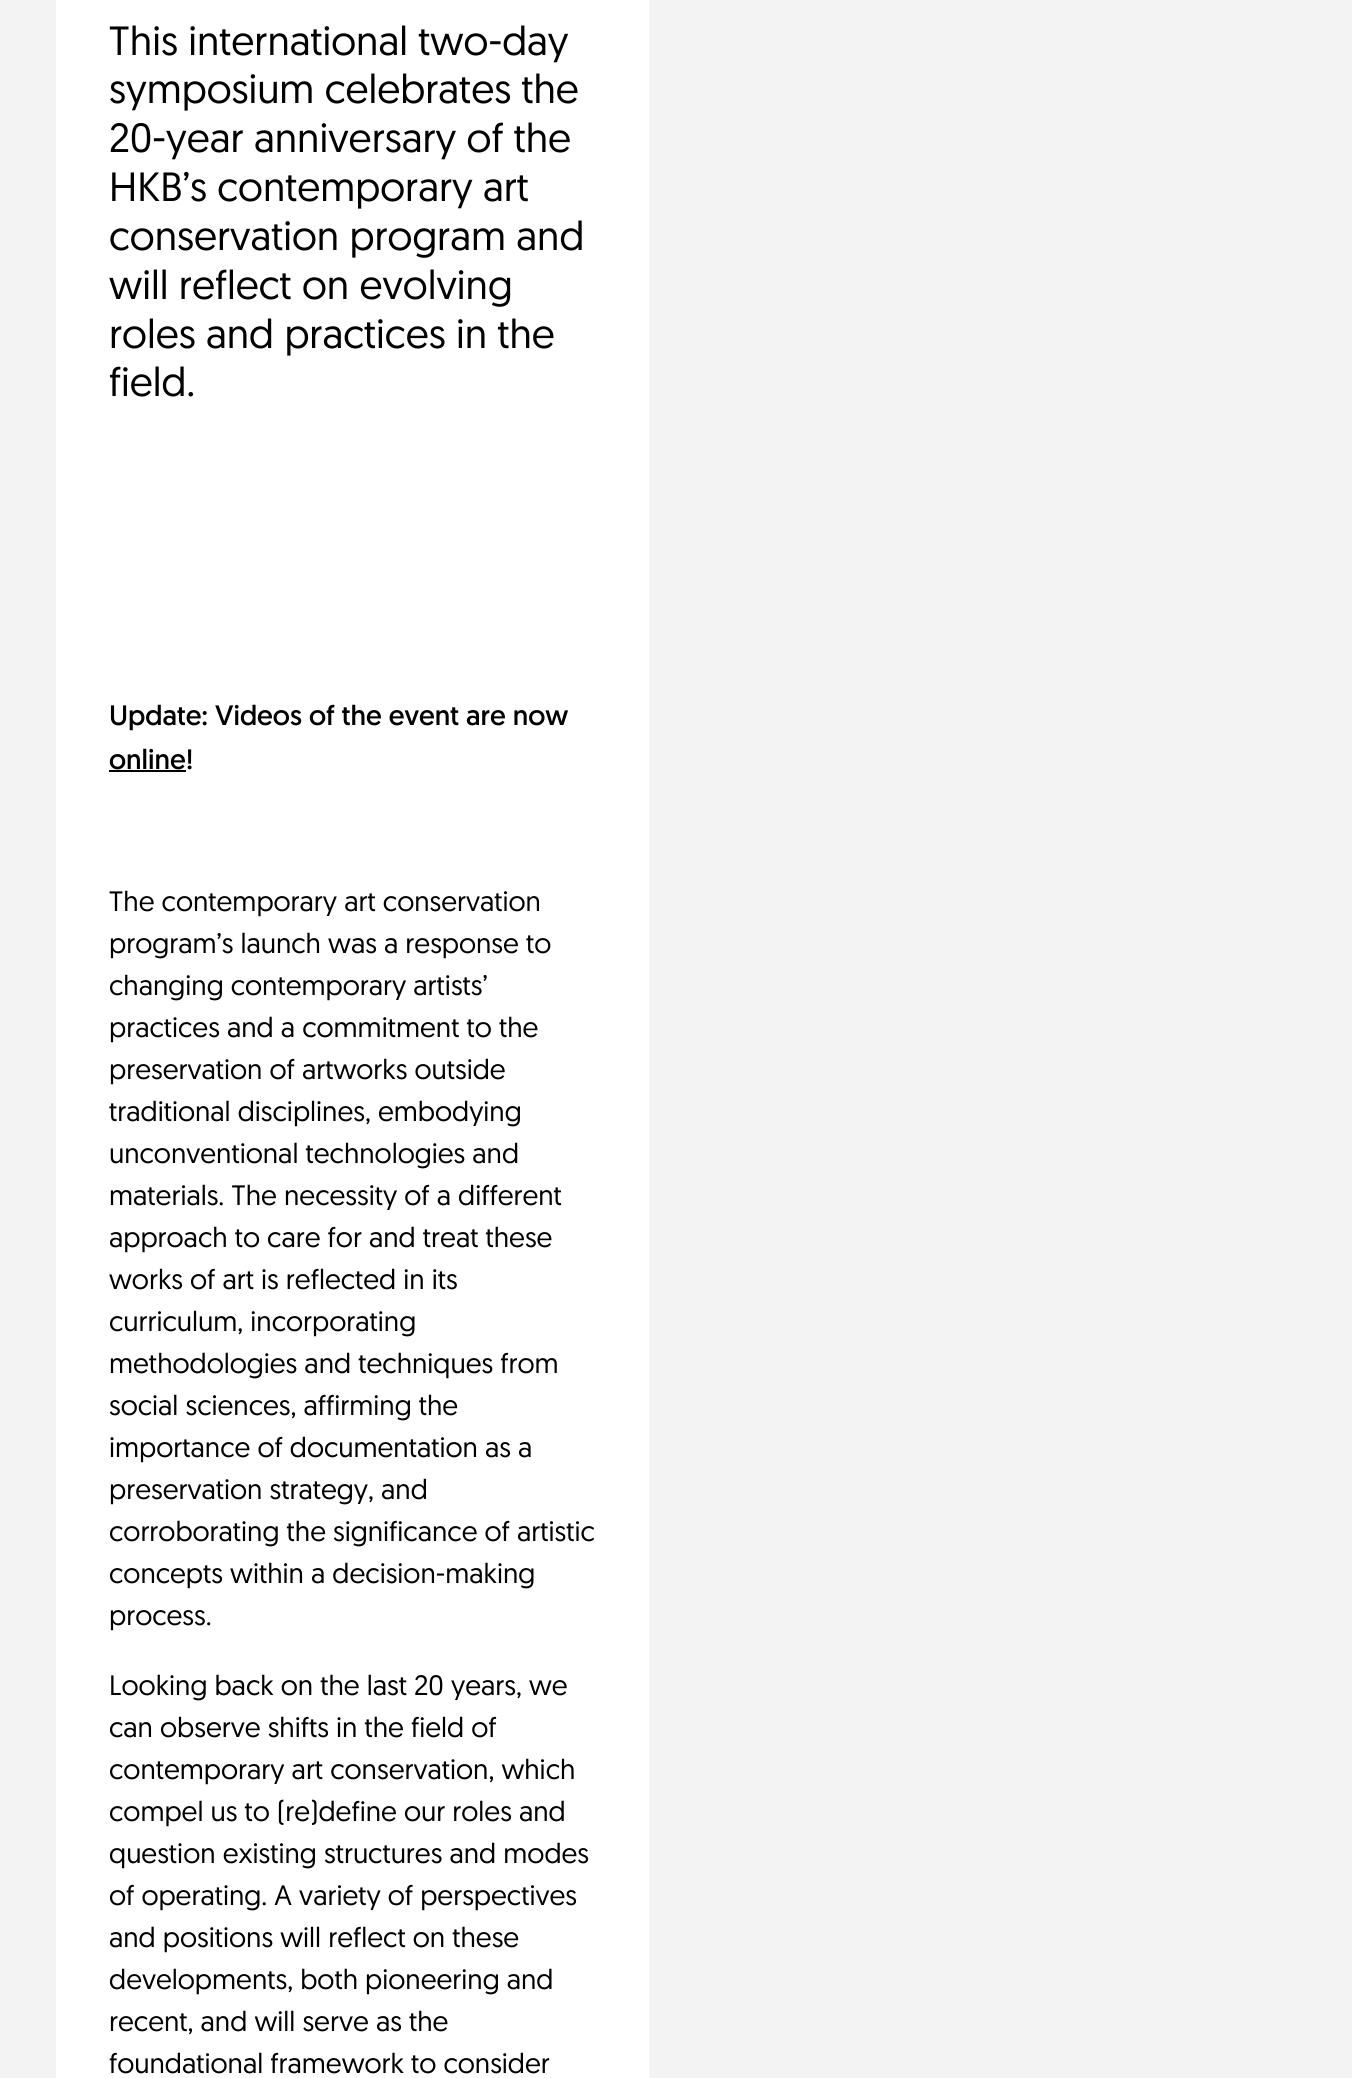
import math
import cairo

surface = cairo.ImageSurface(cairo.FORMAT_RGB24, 1352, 2078)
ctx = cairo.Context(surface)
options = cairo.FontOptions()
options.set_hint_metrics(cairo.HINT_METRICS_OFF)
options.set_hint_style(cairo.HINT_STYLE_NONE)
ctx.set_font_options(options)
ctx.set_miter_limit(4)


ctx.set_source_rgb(0.953, 0.953, 0.953)
ctx.paint()
ctx.set_source_rgb(1, 1, 1)
ctx.rectangle(56, 0, 593, 2078)
ctx.fill()
ctx.select_font_face("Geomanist")
ctx.set_font_size(40.75)
ctx.set_source_rgb(0, 0, 0)
ctx.move_to(109, 55)
ctx.show_text("This international two-day")
ctx.move_to(109, 103)
ctx.show_text("symposium celebrates the")
ctx.move_to(109, 152)
ctx.show_text("20-year anniversary of the")
ctx.move_to(109, 201)
ctx.show_text("HKB’s contemporary art")
ctx.move_to(109, 250)
ctx.show_text("conservation program and")
ctx.move_to(109, 299)
ctx.show_text("will reflect on evolving")
ctx.move_to(109, 348)
ctx.show_text("roles and practices in the")
ctx.move_to(109, 396)
ctx.show_text("field.")
ctx.select_font_face("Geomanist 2")
ctx.set_font_size(28)
ctx.move_to(109, 725)
ctx.show_text("Update: Videos of the event are now")
ctx.move_to(109, 769)
ctx.show_text("online!")
ctx.rectangle(109, 770, 77, 2)
ctx.fill()
ctx.select_font_face("Geomanist")
ctx.move_to(109, 911)
ctx.show_text("The contemporary art conservation")
ctx.move_to(109, 953)
ctx.show_text("program’s launch was a response to")
ctx.move_to(109, 995)
ctx.show_text("changing contemporary artists’")
ctx.move_to(109, 1037)
ctx.show_text("practices and a commitment to the")
ctx.move_to(109, 1079)
ctx.show_text("preservation of artworks outside")
ctx.move_to(109, 1121)
ctx.show_text("traditional disciplines, embodying")
ctx.move_to(109, 1163)
ctx.show_text("unconventional technologies and")
ctx.move_to(109, 1205)
ctx.show_text("materials. The necessity of a different")
ctx.move_to(109, 1247)
ctx.show_text("approach to care for and treat these")
ctx.move_to(109, 1289)
ctx.show_text("works of art is reflected in its")
ctx.move_to(109, 1331)
ctx.show_text("curriculum, incorporating")
ctx.move_to(109, 1373)
ctx.show_text("methodologies and techniques from")
ctx.move_to(109, 1415)
ctx.show_text("social sciences, affirming the")
ctx.move_to(109, 1457)
ctx.show_text("importance of documentation as a")
ctx.move_to(109, 1499)
ctx.show_text("preservation strategy, and")
ctx.move_to(109, 1541)
ctx.show_text("corroborating the significance of artistic")
ctx.move_to(109, 1583)
ctx.show_text("concepts within a decision-making")
ctx.move_to(109, 1625)
ctx.show_text("process.")
ctx.move_to(109, 1695)
ctx.show_text("Looking back on the last 20 years, we")
ctx.move_to(109, 1737)
ctx.show_text("can observe shifts in the field of")
ctx.move_to(109, 1779)
ctx.show_text("contemporary art conservation, which")
ctx.move_to(109, 1821)
ctx.show_text("compel us to (re)define our roles and")
ctx.move_to(109, 1863)
ctx.show_text("question existing structures and modes")
ctx.move_to(109, 1905)
ctx.show_text("of operating. A variety of perspectives")
ctx.move_to(109, 1947)
ctx.show_text("and positions will reflect on these")
ctx.move_to(109, 1989)
ctx.show_text("developments, both pioneering and")
ctx.move_to(109, 2031)
ctx.show_text("recent, and will serve as the")
ctx.move_to(109, 2073)
ctx.show_text("foundational framework to consider")
surface.write_to_png("page.png")
